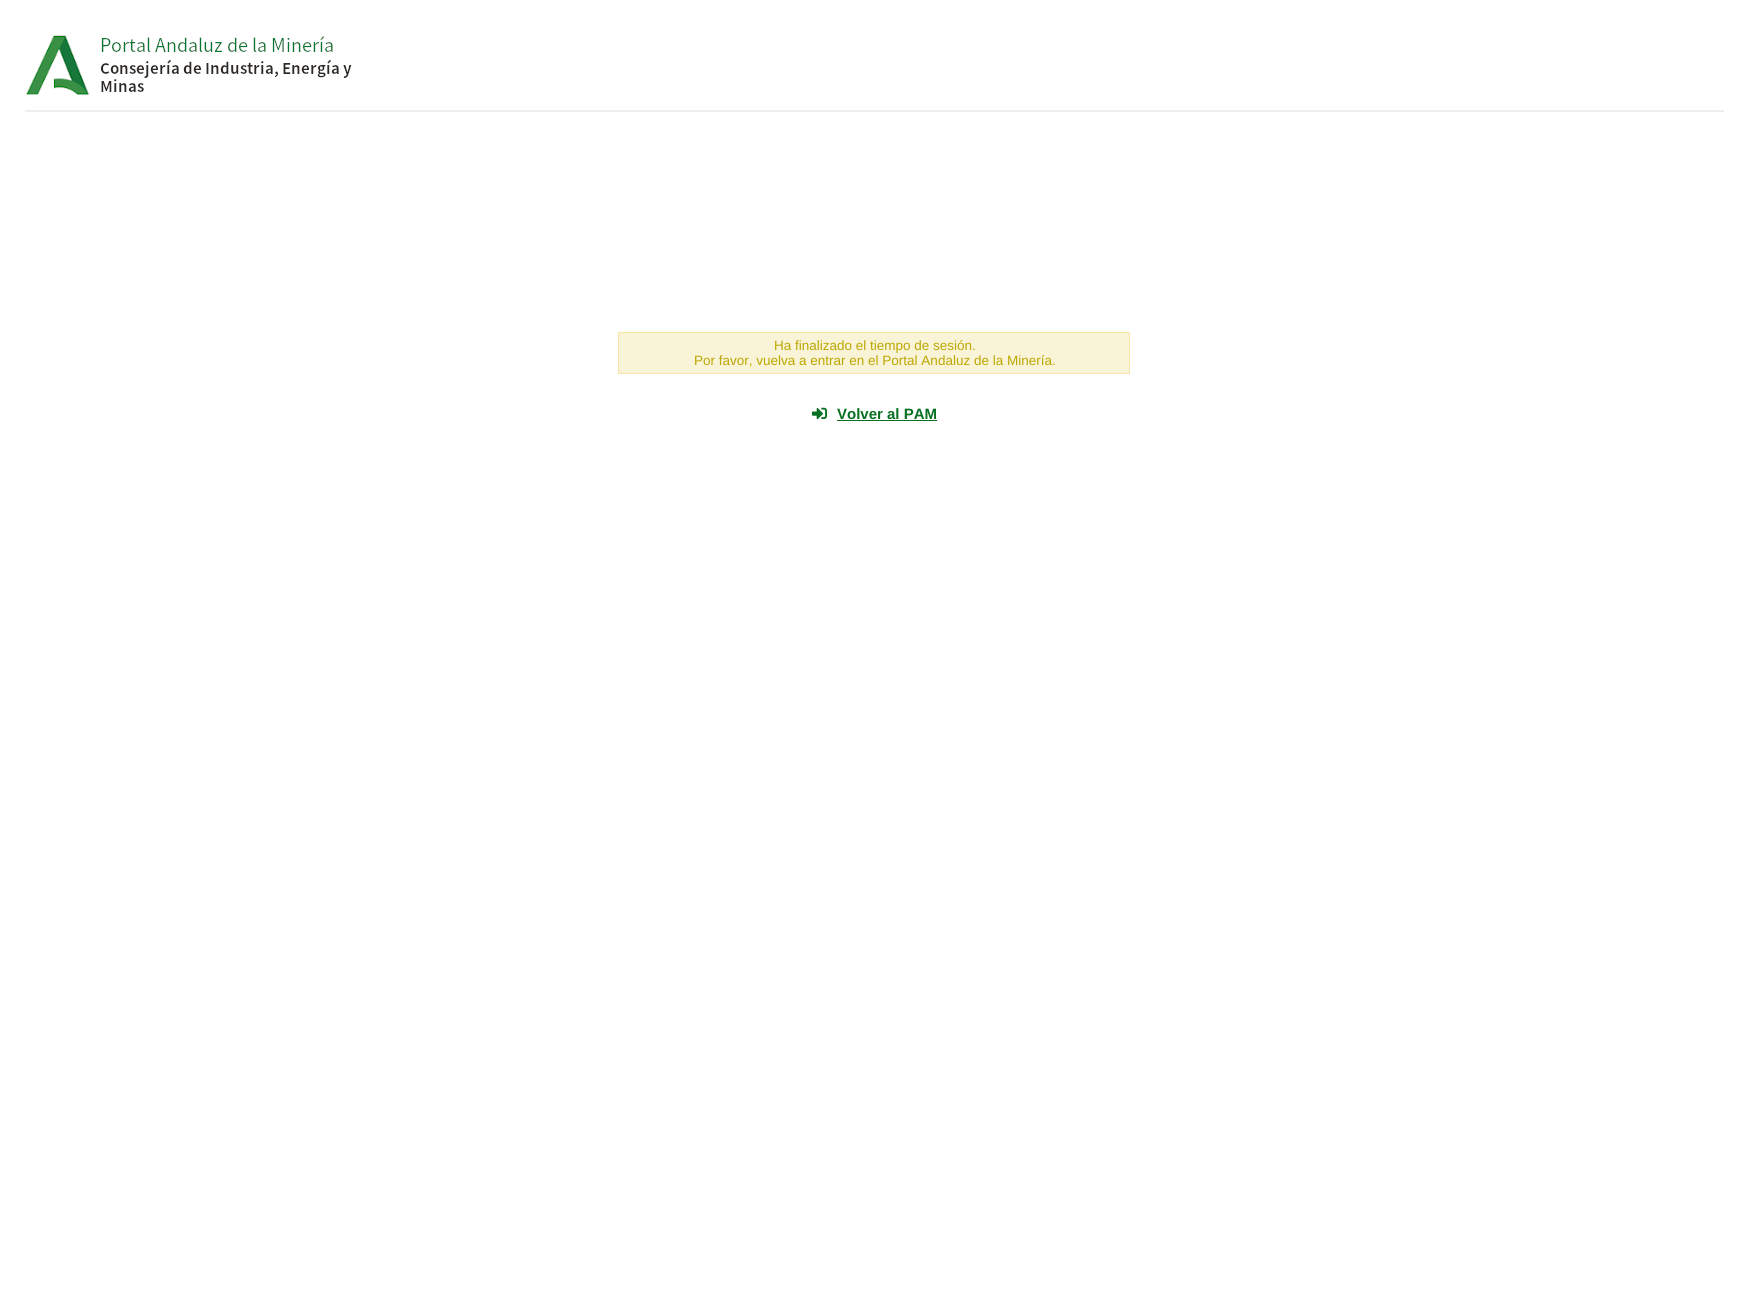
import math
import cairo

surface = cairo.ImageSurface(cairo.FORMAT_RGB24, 1749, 1292)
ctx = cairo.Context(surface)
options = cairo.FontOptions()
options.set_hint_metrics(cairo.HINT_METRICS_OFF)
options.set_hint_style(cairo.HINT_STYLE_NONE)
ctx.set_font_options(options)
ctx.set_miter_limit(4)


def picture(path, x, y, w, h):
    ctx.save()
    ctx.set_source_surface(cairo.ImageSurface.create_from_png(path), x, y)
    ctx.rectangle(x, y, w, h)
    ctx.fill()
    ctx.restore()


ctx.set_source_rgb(1, 1, 1)
ctx.paint()
picture("img1.png", 26, 35, 326, 60)
ctx.set_source_rgb(0.933, 0.933, 0.933)
ctx.rectangle(25, 110, 1699, 2)
ctx.fill()
ctx.set_source_rgb(0.973, 0.953, 0.843)
ctx.rectangle(618.5, 332.5, 511, 41)
ctx.fill_preserve()
ctx.set_source_rgb(0.969, 0.902, 0.639)
ctx.set_line_width(1)
ctx.stroke()
ctx.select_font_face("Liberation Sans")
ctx.set_font_size(13.5)
ctx.set_source_rgb(0.733, 0.655, 0)
ctx.move_to(774, 350)
ctx.show_text("Ha finalizado el tiempo de sesión.")
ctx.move_to(694, 365)
ctx.show_text("Por favor, vuelva a entrar en el Portal Andaluz de la Minería.")
picture("img2.png", 812, 407, 15, 13)
ctx.select_font_face("Liberation Sans", cairo.FONT_SLANT_NORMAL, cairo.FONT_WEIGHT_BOLD)
ctx.set_font_size(15)
ctx.set_source_rgb(0.031, 0.439, 0.129)
ctx.move_to(837, 419)
ctx.show_text("Volver al PAM")
ctx.rectangle(837, 420, 100, 1)
ctx.fill()
surface.write_to_png("page.png")
